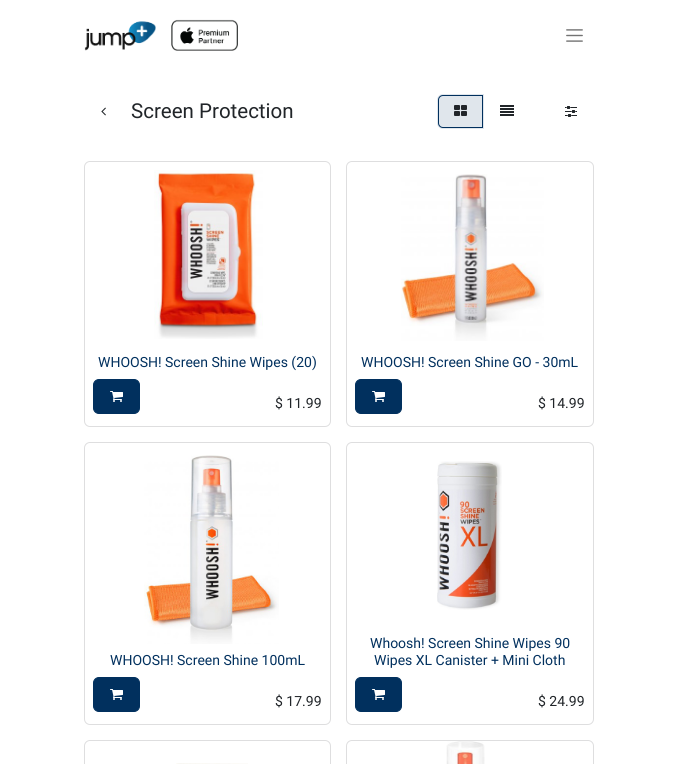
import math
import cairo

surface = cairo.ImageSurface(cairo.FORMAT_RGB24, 677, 764)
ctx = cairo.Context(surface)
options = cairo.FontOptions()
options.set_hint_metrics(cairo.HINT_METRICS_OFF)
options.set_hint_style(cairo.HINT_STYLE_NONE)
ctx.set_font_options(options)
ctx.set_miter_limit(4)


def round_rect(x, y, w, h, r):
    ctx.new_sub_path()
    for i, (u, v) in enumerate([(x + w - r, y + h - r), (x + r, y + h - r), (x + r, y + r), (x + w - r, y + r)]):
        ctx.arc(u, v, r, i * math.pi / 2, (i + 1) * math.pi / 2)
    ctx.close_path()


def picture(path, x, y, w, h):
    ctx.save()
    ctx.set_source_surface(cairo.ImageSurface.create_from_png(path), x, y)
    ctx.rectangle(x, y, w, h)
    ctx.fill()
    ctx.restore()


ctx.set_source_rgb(1, 1, 1)
ctx.paint()
picture("img1.png", 84, 19, 154, 32)
picture("img2.png", 566, 29, 17, 13)
picture("img3.png", 101, 107, 5, 9)
ctx.select_font_face("Roboto")
ctx.set_font_size(20.5)
ctx.set_source_rgb(0.129, 0.145, 0.161)
ctx.move_to(131, 118)
ctx.show_text("Screen Protection")
ctx.set_source_rgb(0.878, 0.902, 0.925)
ctx.new_path()
ctx.move_to(443, 94)
ctx.line_to(484, 94)
ctx.line_to(484, 129)
ctx.line_to(443, 129)
ctx.curve_to(439.5, 129, 437, 126.5, 437, 123)
ctx.line_to(437, 100)
ctx.curve_to(437, 96.5, 439.5, 94, 443, 94)
ctx.close_path()
ctx.fill()
ctx.new_path()
ctx.move_to(443, 95.5)
ctx.line_to(482.5, 95.5)
ctx.line_to(482.5, 127.5)
ctx.line_to(443, 127.5)
ctx.curve_to(440.5, 127.5, 438.5, 125.5, 438.5, 123)
ctx.line_to(438.5, 100)
ctx.curve_to(438.5, 97.5, 440.5, 95.5, 443, 95.5)
ctx.close_path()
ctx.set_source_rgb(0.004, 0.188, 0.369)
ctx.set_line_width(1)
ctx.stroke()
picture("img4.png", 454, 105, 13, 11)
picture("img5.png", 500, 105, 14, 11)
picture("img6.png", 565, 106, 12, 11)
round_rect(84.5, 161.5, 246, 265, 5.5)
ctx.set_source_rgb(0.871, 0.871, 0.875)
ctx.stroke()
picture("img7.png", 154, 170, 109, 169)
ctx.set_font_size(14)
ctx.set_source_rgb(0.004, 0.188, 0.369)
ctx.move_to(98, 367)
ctx.show_text("WHOOSH! Screen Shine Wipes (20)")
round_rect(93.5, 379.5, 46, 34, 5.5)
ctx.fill_preserve()
ctx.stroke()
picture("img8.png", 110, 391, 13, 11)
ctx.set_source_rgb(0.129, 0.145, 0.161)
ctx.move_to(275, 408)
ctx.show_text("$ 11.99")
round_rect(346.5, 161.5, 247, 265, 5.5)
ctx.set_source_rgb(0.871, 0.871, 0.875)
ctx.stroke()
picture("img9.png", 401, 174, 143, 167)
ctx.set_source_rgb(0.004, 0.188, 0.369)
ctx.move_to(361, 367)
ctx.show_text("WHOOSH! Screen Shine GO - 30mL")
round_rect(355.5, 379.5, 46, 34, 5.5)
ctx.fill_preserve()
ctx.stroke()
picture("img8.png", 372, 391, 13, 11)
ctx.set_source_rgb(0.129, 0.145, 0.161)
ctx.move_to(538, 408)
ctx.show_text("$ 14.99")
round_rect(84.5, 442.5, 246, 282, 5.5)
ctx.set_source_rgb(0.871, 0.871, 0.875)
ctx.stroke()
picture("img10.png", 144, 455, 135, 189)
ctx.set_source_rgb(0.004, 0.188, 0.369)
ctx.move_to(110, 665)
ctx.show_text("WHOOSH! Screen Shine 100mL")
round_rect(93.5, 677.5, 46, 34, 5.5)
ctx.fill_preserve()
ctx.stroke()
picture("img8.png", 110, 689, 13, 11)
ctx.set_source_rgb(0.129, 0.145, 0.161)
ctx.move_to(275, 706)
ctx.show_text("$ 17.99")
round_rect(346.5, 442.5, 247, 282, 5.5)
ctx.set_source_rgb(0.871, 0.871, 0.875)
ctx.stroke()
picture("img11.png", 437, 461, 65, 149)
ctx.set_source_rgb(0.004, 0.188, 0.369)
ctx.move_to(370, 648)
ctx.show_text("Whoosh! Screen Shine Wipes 90")
ctx.move_to(374, 665)
ctx.show_text("Wipes XL Canister + Mini Cloth")
round_rect(355.5, 677.5, 46, 34, 5.5)
ctx.fill_preserve()
ctx.stroke()
picture("img8.png", 372, 689, 13, 11)
ctx.set_source_rgb(0.129, 0.145, 0.161)
ctx.move_to(538, 706)
ctx.show_text("$ 24.99")
round_rect(84.5, 740.5, 246, 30, 5.5)
ctx.set_source_rgb(0.871, 0.871, 0.875)
ctx.stroke()
picture("img12.png", 176, 763, 72, 1)
round_rect(346.5, 740.5, 247, 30, 5.5)
ctx.stroke()
picture("img13.png", 446, 741, 39, 23)
surface.write_to_png("page.png")
